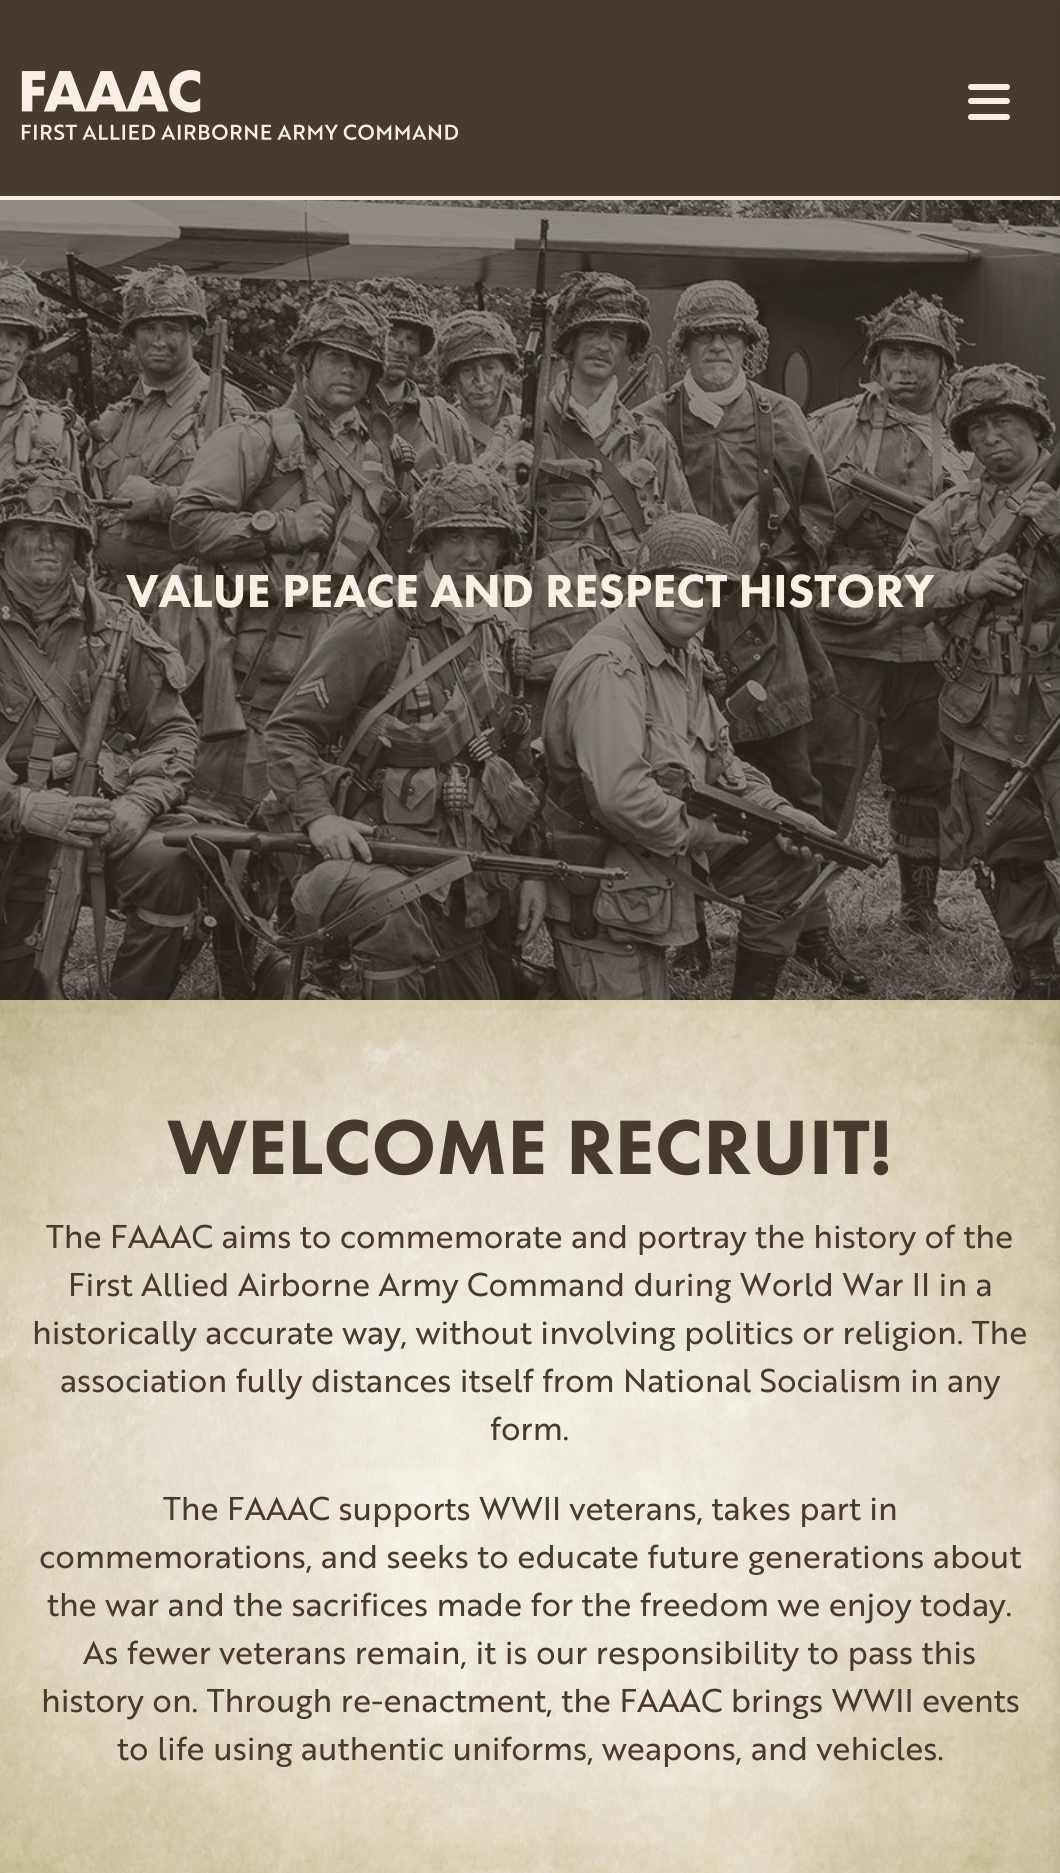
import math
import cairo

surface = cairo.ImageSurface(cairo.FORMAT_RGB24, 1060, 1873)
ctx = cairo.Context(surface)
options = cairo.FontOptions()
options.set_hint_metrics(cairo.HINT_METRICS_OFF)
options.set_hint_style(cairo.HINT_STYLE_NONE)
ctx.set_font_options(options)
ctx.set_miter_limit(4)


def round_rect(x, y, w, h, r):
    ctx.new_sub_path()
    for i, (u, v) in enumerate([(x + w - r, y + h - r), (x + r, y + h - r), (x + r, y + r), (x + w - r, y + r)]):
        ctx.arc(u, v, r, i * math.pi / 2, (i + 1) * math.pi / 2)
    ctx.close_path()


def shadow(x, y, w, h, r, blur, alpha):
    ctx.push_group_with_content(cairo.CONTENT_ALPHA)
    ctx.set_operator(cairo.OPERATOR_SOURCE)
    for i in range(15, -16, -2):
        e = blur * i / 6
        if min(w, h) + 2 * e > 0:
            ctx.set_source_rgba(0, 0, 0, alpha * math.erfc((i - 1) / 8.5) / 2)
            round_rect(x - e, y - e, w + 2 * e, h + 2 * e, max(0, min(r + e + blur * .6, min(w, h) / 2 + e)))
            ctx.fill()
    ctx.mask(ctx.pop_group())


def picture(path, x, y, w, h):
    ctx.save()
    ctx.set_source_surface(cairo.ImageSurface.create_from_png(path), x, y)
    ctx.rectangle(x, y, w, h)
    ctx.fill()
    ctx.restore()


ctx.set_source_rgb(1, 1, 1)
ctx.paint()
ctx.set_source_rgb(0.275, 0.231, 0.173)
ctx.rectangle(0, 0, 1060, 196)
ctx.fill()
ctx.set_source_rgb(0.969, 0.937, 0.898)
ctx.rectangle(0, 196, 1060, 4)
ctx.fill()
picture("img1.png", 21, 70, 438, 70)
round_rect(968, 84, 42, 6, 3)
ctx.fill()
round_rect(968, 98, 42, 6, 3)
ctx.fill()
round_rect(968, 114, 42, 6, 3)
ctx.fill()
picture("img2.png", 0, 200, 1060, 800)
picture("img3.png", 0, 1000, 1060, 873)
ctx.set_source_rgb(0, 0, 0)
shadow(1060, 10, 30, 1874, 0, 10, 0.1)
ctx.select_font_face("Futura PT Black")
ctx.set_font_size(48)
ctx.set_source_rgb(0.969, 0.937, 0.898)
ctx.move_to(126, 607)
ctx.show_text("VALUE PEACE AND RESPECT HISTORY")
ctx.set_font_size(80)
ctx.set_source_rgb(0.275, 0.231, 0.173)
ctx.move_to(167, 1174)
ctx.show_text("WELCOME RECRUIT!")
ctx.select_font_face("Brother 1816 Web")
ctx.set_font_size(32)
ctx.move_to(46, 1248)
ctx.show_text("The FAAAC aims to commemorate and portray the history of the")
ctx.move_to(68, 1296)
ctx.show_text("First Allied Airborne Army Command during World War II in a")
ctx.move_to(32, 1344)
ctx.show_text("historically accurate way, without involving politics or religion. The")
ctx.move_to(60, 1392)
ctx.show_text("association fully distances itself from National Socialism in any")
ctx.move_to(490, 1440)
ctx.show_text("form.")
ctx.move_to(163, 1520)
ctx.show_text("The FAAAC supports WWII veterans, takes part in")
ctx.move_to(39, 1568)
ctx.show_text("commemorations, and seeks to educate future generations about")
ctx.move_to(47, 1616)
ctx.show_text("the war and the sacrifices made for the freedom we enjoy today.")
ctx.move_to(83, 1664)
ctx.show_text("As fewer veterans remain, it is our responsibility to pass this")
ctx.move_to(41, 1712)
ctx.show_text("history on. Through re-enactment, the FAAAC brings WWII events")
ctx.move_to(117, 1760)
ctx.show_text("to life using authentic uniforms, weapons, and vehicles.")
surface.write_to_png("page.png")
